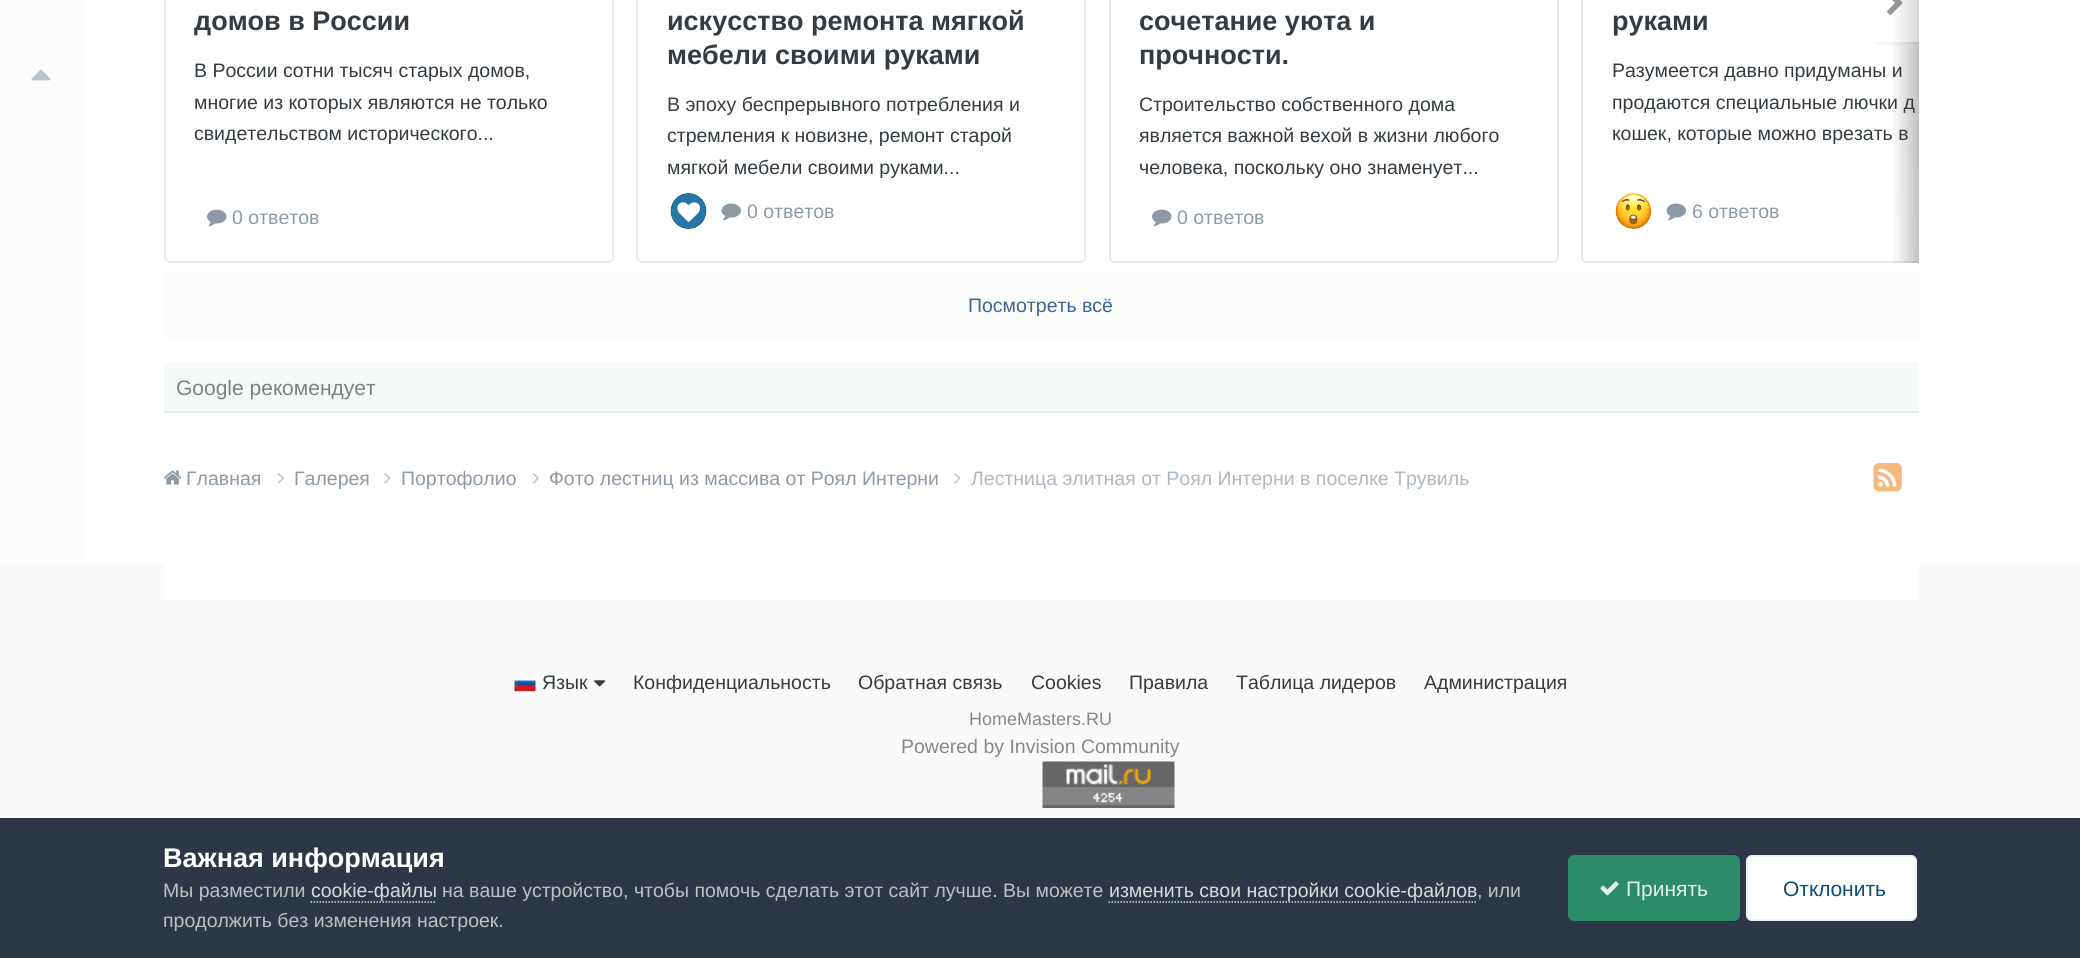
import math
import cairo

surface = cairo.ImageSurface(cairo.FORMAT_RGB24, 2080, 958)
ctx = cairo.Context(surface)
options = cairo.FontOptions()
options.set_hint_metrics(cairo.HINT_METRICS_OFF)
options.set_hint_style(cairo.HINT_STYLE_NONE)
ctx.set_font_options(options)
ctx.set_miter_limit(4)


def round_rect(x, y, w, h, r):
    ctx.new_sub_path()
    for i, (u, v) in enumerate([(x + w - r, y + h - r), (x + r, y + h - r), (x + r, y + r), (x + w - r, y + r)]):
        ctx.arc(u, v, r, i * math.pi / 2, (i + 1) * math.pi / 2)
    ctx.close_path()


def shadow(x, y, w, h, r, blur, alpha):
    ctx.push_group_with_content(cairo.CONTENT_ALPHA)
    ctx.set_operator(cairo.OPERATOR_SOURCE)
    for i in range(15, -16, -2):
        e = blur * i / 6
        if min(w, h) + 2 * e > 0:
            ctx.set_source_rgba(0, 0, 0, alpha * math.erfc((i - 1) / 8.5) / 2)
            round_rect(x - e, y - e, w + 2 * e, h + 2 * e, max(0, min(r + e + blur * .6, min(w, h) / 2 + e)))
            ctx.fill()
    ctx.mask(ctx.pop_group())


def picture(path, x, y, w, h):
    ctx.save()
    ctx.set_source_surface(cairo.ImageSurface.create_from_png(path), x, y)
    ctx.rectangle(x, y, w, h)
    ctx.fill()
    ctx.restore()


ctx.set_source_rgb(1, 1, 1)
ctx.paint()
ctx.set_source_rgb(0.988, 0.988, 0.988)
ctx.rectangle(0, 0, 83, 563)
ctx.fill()
ctx.save()
ctx.rectangle(164, 0, 1755, 263)
ctx.clip()
round_rect(1582, -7, 448, 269, 5)
ctx.set_source_rgb(0.91, 0.922, 0.929)
ctx.stroke()
ctx.restore()
gradient = cairo.LinearGradient(1889, -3.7, 1919, -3.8)
gradient.add_color_stop_rgba(0, 0, 0, 0, 0)
gradient.add_color_stop_rgba(0.24, 0, 0, 0, 0.04)
gradient.add_color_stop_rgba(1, 0, 0, 0, 0.25)
ctx.set_source(gradient)
ctx.rectangle(1893, 0, 26, 263)
ctx.fill()
ctx.save()
ctx.rectangle(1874, 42, 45, 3)
ctx.clip()
ctx.set_source_rgb(0, 0, 0)
shadow(1874, -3, 45, 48, 0, 1, 0.04)
ctx.restore()
ctx.set_source_rgba(1, 1, 1, 0.4)
ctx.rectangle(1894, 0, 25, 42)
ctx.fill()
picture("img1.png", 1886, 0, 17, 15)
round_rect(165, -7, 448, 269, 5)
ctx.set_source_rgb(0.91, 0.922, 0.929)
ctx.stroke()
ctx.select_font_face("Liberation Sans", cairo.FONT_SLANT_NORMAL, cairo.FONT_WEIGHT_BOLD)
ctx.set_font_size(27)
ctx.set_source_rgb(0.208, 0.235, 0.255)
ctx.move_to(194, 30)
ctx.show_text("домов в России")
ctx.select_font_face("Liberation Sans")
ctx.set_font_size(19.5)
ctx.move_to(194, 77)
ctx.show_text("В России сотни тысяч старых домов,")
ctx.move_to(194, 109)
ctx.show_text("многие из которых являются не только")
ctx.move_to(194, 140)
ctx.show_text("свидетельством исторического...")
picture("img2.png", 207, 209, 20, 18)
ctx.set_source_rgb(0.553, 0.604, 0.651)
ctx.move_to(232, 224)
ctx.show_text("0 ответов")
round_rect(637, -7, 448, 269, 5)
ctx.set_source_rgb(0.91, 0.922, 0.929)
ctx.stroke()
ctx.select_font_face("Liberation Sans", cairo.FONT_SLANT_NORMAL, cairo.FONT_WEIGHT_BOLD)
ctx.set_font_size(27)
ctx.set_source_rgb(0.208, 0.235, 0.255)
ctx.move_to(667, 30)
ctx.show_text("искусство ремонта мягкой")
ctx.move_to(667, 64)
ctx.show_text("мебели своими руками")
ctx.select_font_face("Liberation Sans")
ctx.set_font_size(19.5)
ctx.move_to(667, 111)
ctx.show_text("В эпоху беспрерывного потребления и")
ctx.move_to(667, 142)
ctx.show_text("стремления к новизне, ремонт старой")
ctx.move_to(667, 174)
ctx.show_text("мягкой мебели своими руками...")
picture("img3.png", 670, 193, 37, 36)
picture("img4.png", 721, 203, 20, 18)
ctx.set_source_rgb(0.553, 0.604, 0.651)
ctx.move_to(747, 218)
ctx.show_text("0 ответов")
round_rect(1110, -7, 448, 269, 5)
ctx.set_source_rgb(0.91, 0.922, 0.929)
ctx.stroke()
ctx.select_font_face("Liberation Sans", cairo.FONT_SLANT_NORMAL, cairo.FONT_WEIGHT_BOLD)
ctx.set_font_size(27)
ctx.set_source_rgb(0.208, 0.235, 0.255)
ctx.move_to(1139, 30)
ctx.show_text("сочетание уюта и")
ctx.move_to(1139, 64)
ctx.show_text("прочности.")
ctx.select_font_face("Liberation Sans")
ctx.set_font_size(19.5)
ctx.move_to(1139, 111)
ctx.show_text("Строительство собственного дома")
ctx.move_to(1139, 142)
ctx.show_text("является важной вехой в жизни любого")
ctx.move_to(1139, 174)
ctx.show_text("человека, поскольку оно знаменует...")
picture("img2.png", 1152, 209, 20, 18)
ctx.set_source_rgb(0.553, 0.604, 0.651)
ctx.move_to(1177, 224)
ctx.show_text("0 ответов")
ctx.select_font_face("Liberation Sans", cairo.FONT_SLANT_NORMAL, cairo.FONT_WEIGHT_BOLD)
ctx.set_font_size(27)
ctx.set_source_rgb(0.208, 0.235, 0.255)
ctx.move_to(1612, 30)
ctx.show_text("руками")
ctx.select_font_face("Liberation Sans")
ctx.set_font_size(19.5)
ctx.move_to(1612, 77)
ctx.show_text("Разумеется давно придуманы и")
ctx.move_to(1612, 109)
ctx.show_text("продаются специальные лючки д")
ctx.move_to(1612, 140)
ctx.show_text("кошек, которые можно врезать в")
picture("img5.png", 1615, 193, 37, 36)
picture("img4.png", 1666, 203, 20, 18)
ctx.set_source_rgb(0.553, 0.604, 0.651)
ctx.move_to(1692, 218)
ctx.show_text("6 ответов")
ctx.set_source_rgb(0.984, 0.984, 0.984)
ctx.rectangle(164, 273, 1755, 65)
ctx.fill()
ctx.set_source_rgb(0.239, 0.396, 0.58)
ctx.move_to(968, 312)
ctx.show_text("Посмотреть всё")
ctx.set_source_rgb(0.961, 0.973, 0.98)
ctx.rectangle(164, 363, 1755, 48)
ctx.fill()
ctx.set_source_rgb(0.898, 0.918, 0.929)
ctx.rectangle(164, 411, 1755, 2)
ctx.fill()
ctx.set_font_size(21)
ctx.set_source_rgb(0.502, 0.502, 0.502)
ctx.move_to(176, 395)
ctx.show_text("Google рекомендует")
picture("img6.png", 164, 470, 18, 15)
ctx.set_font_size(19.5)
ctx.set_source_rgb(0.553, 0.604, 0.651)
ctx.move_to(186, 485)
ctx.show_text("Главная")
picture("img7.png", 277, 472, 7, 12)
ctx.move_to(294, 485)
ctx.show_text("Галерея")
picture("img8.png", 384, 473, 7, 11)
ctx.move_to(401, 485)
ctx.show_text("Портофолио")
picture("img7.png", 532, 472, 7, 12)
ctx.move_to(549, 485)
ctx.show_text("Фото лестниц из массива от Роял Интерни")
picture("img8.png", 954, 473, 7, 11)
ctx.set_source_rgb(0.686, 0.722, 0.757)
ctx.move_to(971, 485)
ctx.show_text("Лестница элитная от Роял Интерни в поселке Трувиль")
picture("img9.png", 1873, 463, 29, 29)
ctx.set_source_rgb(0.98, 0.98, 0.98)
ctx.rectangle(0, 563, 2080, 255)
ctx.fill()
ctx.set_source_rgb(1, 1, 1)
ctx.rectangle(164, 563, 1755, 37)
ctx.fill()
picture("img10.png", 31, 69, 20, 12)
picture("img11.png", 514, 675, 22, 17)
ctx.set_source_rgb(0.208, 0.235, 0.255)
ctx.move_to(542, 689)
ctx.show_text("Язык")
picture("img12.png", 594, 680, 12, 7)
ctx.move_to(633, 689)
ctx.show_text("Конфиденциальность")
ctx.move_to(858, 689)
ctx.show_text("Обратная связь")
ctx.move_to(1031, 689)
ctx.show_text("Cookies")
ctx.move_to(1129, 689)
ctx.show_text("Правила")
ctx.move_to(1236, 689)
ctx.show_text("Таблица лидеров")
ctx.move_to(1424, 689)
ctx.show_text("Администрация")
ctx.set_font_size(18)
ctx.set_source_rgb(0.518, 0.533, 0.545)
ctx.move_to(969, 725)
ctx.show_text("HomeMasters.RU")
ctx.set_font_size(19.5)
ctx.move_to(901, 753)
ctx.show_text("Powered by Invision Community")
picture("img13.png", 1042, 761, 133, 47)
ctx.set_source_rgb(0.176, 0.216, 0.282)
ctx.rectangle(0, 818, 2080, 140)
ctx.fill()
ctx.select_font_face("Liberation Sans", cairo.FONT_SLANT_NORMAL, cairo.FONT_WEIGHT_BOLD)
ctx.set_font_size(27)
ctx.set_source_rgb(1, 1, 1)
ctx.move_to(163, 867)
ctx.show_text("Важная информация")
ctx.select_font_face("Liberation Sans")
ctx.set_font_size(19.5)
ctx.set_source_rgb(0.753, 0.753, 0.753)
ctx.move_to(163, 897)
ctx.show_text("Мы разместили")
ctx.new_path()
ctx.move_to(310.5, 902)
ctx.line_to(436.5, 902)
ctx.set_source_rgb(0.855, 0.855, 0.855)
ctx.set_line_width(1.5)
ctx.set_dash([1.5, 1.5])
ctx.stroke()
ctx.move_to(311, 897)
ctx.show_text("cookie-файлы")
ctx.set_source_rgb(0.753, 0.753, 0.753)
ctx.move_to(442, 897)
ctx.show_text("на ваше устройство, чтобы помочь сделать этот сайт лучше. Вы можете")
ctx.new_path()
ctx.move_to(1108.5, 902)
ctx.line_to(1477.5, 902)
ctx.set_source_rgb(0.855, 0.855, 0.855)
ctx.stroke()
ctx.move_to(1109, 897)
ctx.show_text("изменить свои настройки cookie-файлов")
ctx.set_source_rgb(0.753, 0.753, 0.753)
ctx.move_to(1477, 897)
ctx.show_text(", или")
ctx.move_to(163, 927)
ctx.show_text("продолжить без изменения настроек.")
ctx.set_source_rgb(0.173, 0.549, 0.412)
round_rect(1568, 855, 172, 66, 6)
ctx.fill()
picture("img14.png", 1600, 881, 19, 15)
ctx.set_font_size(21)
ctx.set_source_rgb(0.89, 0.953, 0.925)
ctx.move_to(1626, 896)
ctx.show_text("Принять")
ctx.set_source_rgb(1, 1, 1)
round_rect(1746, 855, 171, 66, 6)
ctx.fill()
round_rect(1747, 856, 169, 64, 5)
ctx.set_source_rgba(0.055, 0.298, 0.475, 0.07)
ctx.set_line_width(2)
ctx.set_dash([])
ctx.stroke()
ctx.set_source_rgb(0.055, 0.298, 0.475)
ctx.move_to(1783, 896)
ctx.show_text("Отклонить")
surface.write_to_png("page.png")
